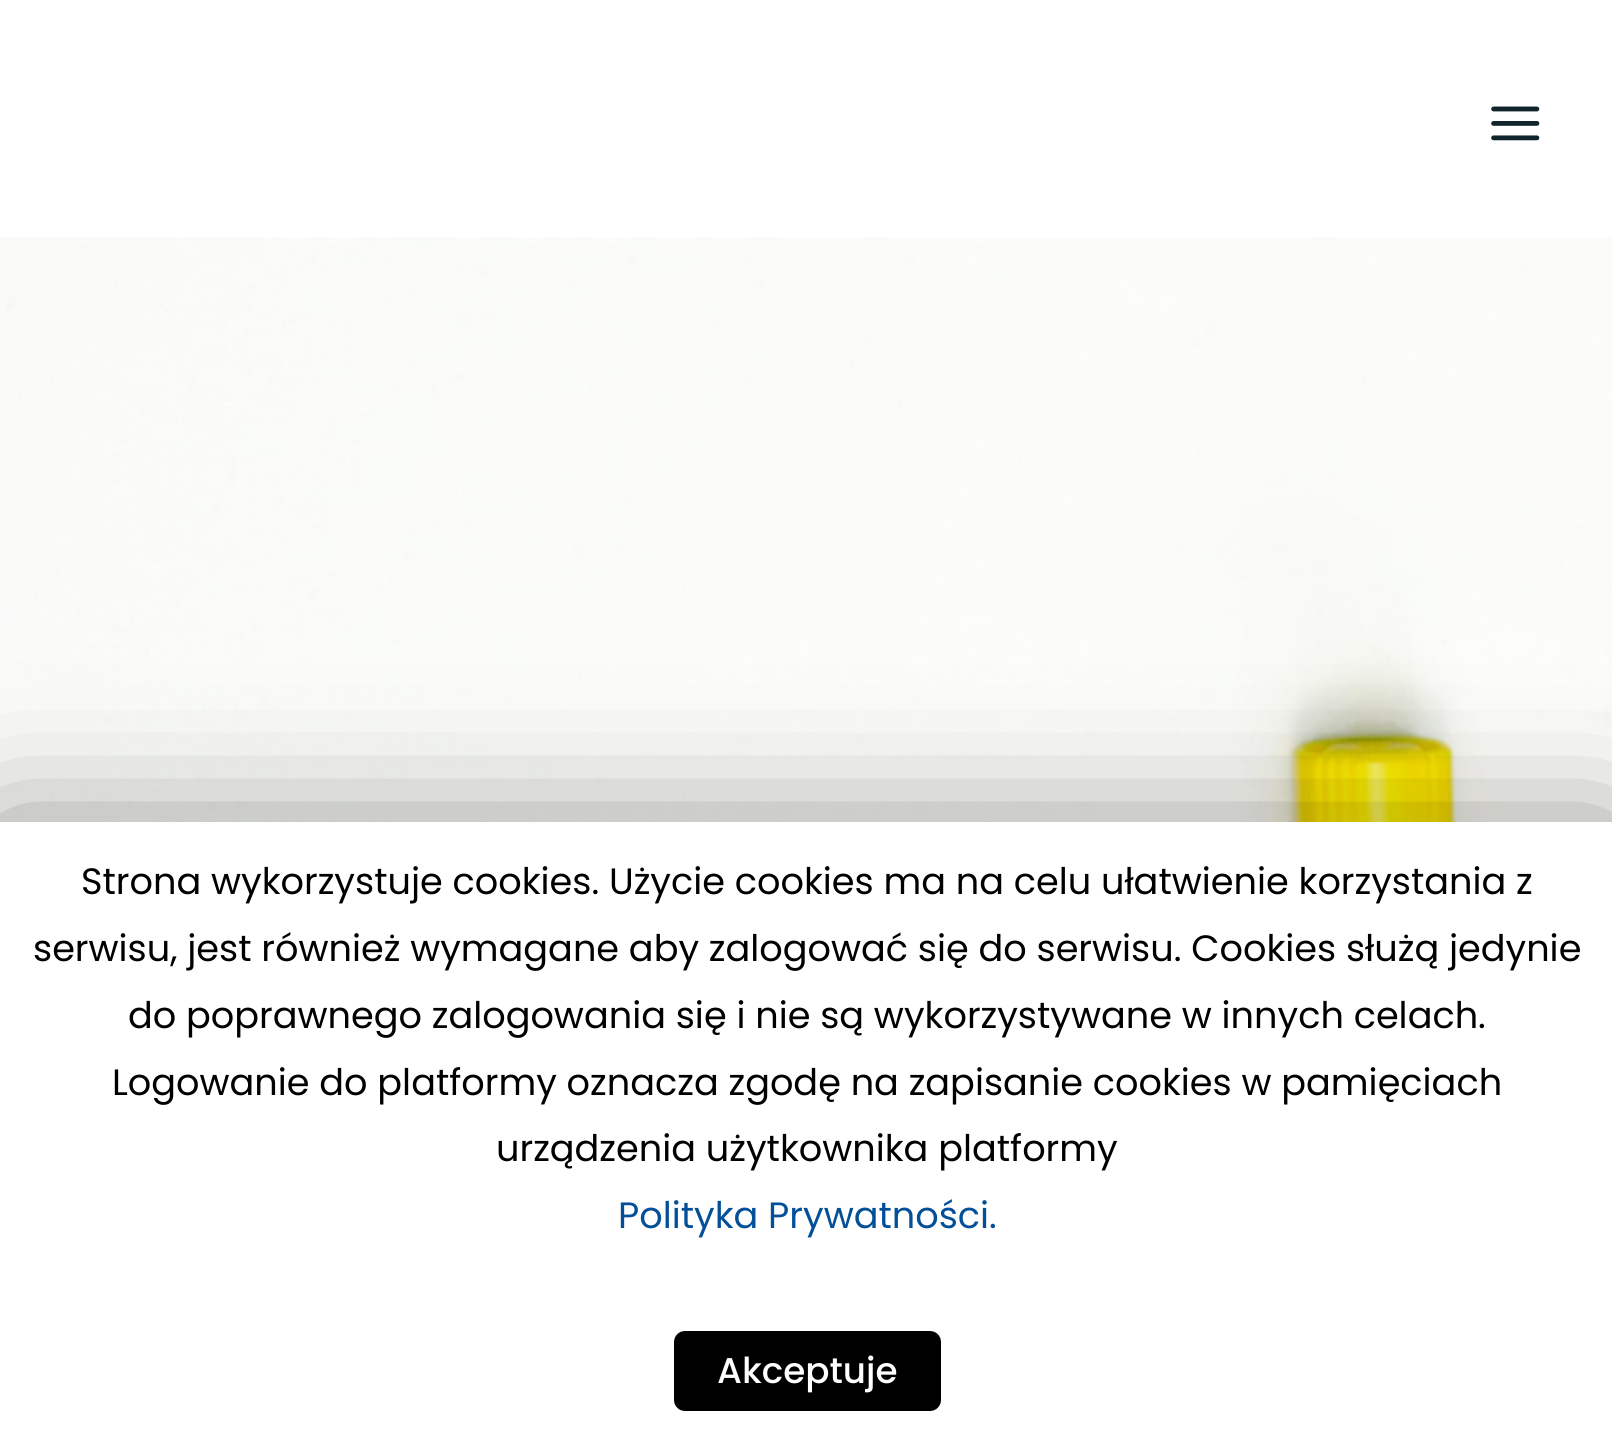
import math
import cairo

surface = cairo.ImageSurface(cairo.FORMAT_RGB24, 1612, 1437)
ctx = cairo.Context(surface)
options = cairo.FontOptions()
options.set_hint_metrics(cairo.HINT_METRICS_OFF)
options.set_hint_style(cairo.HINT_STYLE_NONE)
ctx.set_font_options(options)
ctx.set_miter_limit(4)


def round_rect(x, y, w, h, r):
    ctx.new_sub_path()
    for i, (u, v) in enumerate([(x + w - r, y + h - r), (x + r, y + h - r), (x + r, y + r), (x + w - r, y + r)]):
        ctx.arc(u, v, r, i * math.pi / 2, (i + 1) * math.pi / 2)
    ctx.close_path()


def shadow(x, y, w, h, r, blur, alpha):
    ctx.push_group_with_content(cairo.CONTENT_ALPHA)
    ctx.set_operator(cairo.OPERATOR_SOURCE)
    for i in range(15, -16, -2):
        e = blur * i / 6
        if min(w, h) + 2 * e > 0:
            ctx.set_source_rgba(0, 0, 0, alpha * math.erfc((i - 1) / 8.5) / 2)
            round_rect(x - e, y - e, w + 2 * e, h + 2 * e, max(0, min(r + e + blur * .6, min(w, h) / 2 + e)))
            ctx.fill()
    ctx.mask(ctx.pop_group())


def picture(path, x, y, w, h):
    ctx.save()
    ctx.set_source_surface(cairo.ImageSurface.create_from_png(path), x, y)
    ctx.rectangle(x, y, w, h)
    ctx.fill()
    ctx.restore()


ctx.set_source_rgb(1, 1, 1)
ctx.paint()
picture("img1.png", 1491, 106, 49, 35)
picture("img2.png", 0, 237, 1612, 585)
ctx.set_source_rgb(0, 0, 0)
shadow(0, 836, 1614, 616, 0, 69, 0.5)
ctx.set_source_rgb(1, 1, 1)
ctx.rectangle(0, 822, 1612, 615)
ctx.fill()
ctx.select_font_face("Poppins")
ctx.set_font_size(36.65)
ctx.set_source_rgb(0, 0, 0)
ctx.move_to(81, 894)
ctx.show_text("Strona wykorzystuje cookies. Użycie cookies ma na celu ułatwienie korzystania z")
ctx.move_to(33, 961)
ctx.show_text("serwisu, jest również wymagane aby zalogować się do serwisu. Cookies służą jedynie")
ctx.move_to(128, 1028)
ctx.show_text("do poprawnego zalogowania się i nie są wykorzystywane w innych celach.")
ctx.move_to(112, 1095)
ctx.show_text("Logowanie do platformy oznacza zgodę na zapisanie cookies w pamięciach")
ctx.move_to(496, 1161)
ctx.show_text("urządzenia użytkownika platformy")
ctx.set_source_rgb(0.012, 0.31, 0.596)
ctx.move_to(618, 1228)
ctx.show_text("Polityka Prywatności.")
ctx.set_source_rgb(0, 0, 0)
round_rect(674, 1331, 267, 80, 11)
ctx.fill()
ctx.select_font_face("Poppins Medium")
ctx.set_font_size(35.75)
ctx.set_source_rgb(1, 1, 1)
ctx.move_to(717, 1383)
ctx.show_text("Akceptuje")
surface.write_to_png("page.png")
